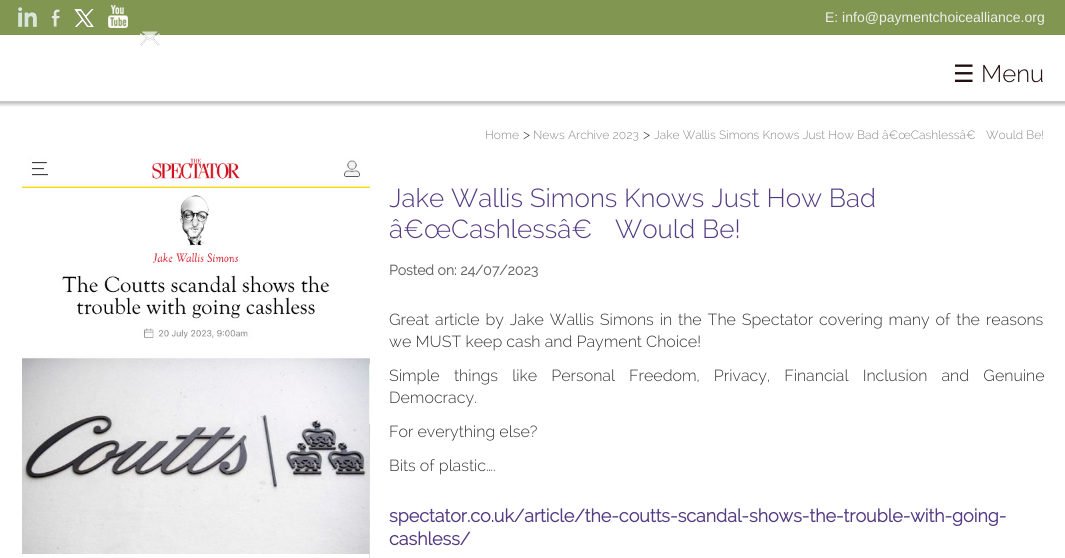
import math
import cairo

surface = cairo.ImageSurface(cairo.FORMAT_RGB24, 1065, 558)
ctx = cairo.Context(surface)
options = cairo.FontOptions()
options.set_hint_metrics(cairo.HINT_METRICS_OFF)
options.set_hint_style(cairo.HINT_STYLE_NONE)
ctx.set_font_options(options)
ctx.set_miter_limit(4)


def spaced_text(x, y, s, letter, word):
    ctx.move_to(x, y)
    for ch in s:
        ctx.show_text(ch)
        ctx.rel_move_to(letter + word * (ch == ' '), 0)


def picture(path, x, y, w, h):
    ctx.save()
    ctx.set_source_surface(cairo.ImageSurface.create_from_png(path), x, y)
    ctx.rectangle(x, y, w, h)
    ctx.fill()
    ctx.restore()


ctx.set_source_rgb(1, 1, 1)
ctx.paint()
ctx.set_source_rgb(0.506, 0.588, 0.318)
ctx.rectangle(0, 0, 1065, 35)
ctx.fill()
picture("img1.png", 18, 7, 19, 20)
picture("img2.png", 51, 9, 9, 18)
picture("img3.png", 74, 9, 20, 18)
picture("img4.png", 108, 5, 20, 23)
picture("img5.png", 140, 30, 20, 16)
ctx.select_font_face("Liberation Sans")
ctx.set_font_size(14)
ctx.set_source_rgb(0.933, 0.933, 0.933)
ctx.move_to(825, 22)
ctx.show_text("E: info@paymentchoicealliance.org")
ctx.select_font_face("DejaVu Sans")
ctx.set_font_size(24)
ctx.set_source_rgb(0.133, 0.055, 0.059)
ctx.move_to(953, 82)
ctx.show_text("☰")
ctx.select_font_face("Raleway Light")
ctx.move_to(981, 82)
ctx.show_text("Menu")
picture("img6.png", 0, 101, 1065, 6)
ctx.set_font_size(12)
ctx.set_source_rgb(0.533, 0.533, 0.533)
ctx.move_to(485, 139)
ctx.show_text("Home")
ctx.set_font_size(14)
ctx.set_source_rgb(0.2, 0.2, 0.2)
ctx.move_to(523, 139)
ctx.show_text(">")
ctx.set_font_size(12)
ctx.set_source_rgb(0.533, 0.533, 0.533)
ctx.move_to(533, 139)
ctx.show_text("News Archive 2023")
ctx.set_font_size(14)
ctx.set_source_rgb(0.2, 0.2, 0.2)
ctx.move_to(643, 139)
ctx.show_text(">")
ctx.set_font_size(12)
ctx.set_source_rgb(0.533, 0.533, 0.533)
ctx.move_to(654, 139)
ctx.show_text("Jake Wallis Simons Knows Just How Bad â€œCashlessâ€")
ctx.move_to(986, 139)
ctx.show_text("Would Be!")
picture("img7.png", 22, 157, 348, 401)
ctx.set_font_size(26)
ctx.set_source_rgb(0.333, 0.231, 0.518)
ctx.move_to(389, 207)
ctx.show_text("Jake Wallis Simons Knows Just How Bad")
ctx.move_to(389, 238)
ctx.show_text("â€œCashlessâ€")
ctx.move_to(615, 238)
ctx.show_text("Would Be!")
ctx.select_font_face("Raleway", cairo.FONT_SLANT_NORMAL, cairo.FONT_WEIGHT_BOLD)
ctx.set_font_size(14)
ctx.set_source_rgb(0.4, 0.4, 0.4)
ctx.move_to(389, 275)
ctx.show_text("Posted on: 24/07/2023")
ctx.select_font_face("Raleway Light")
ctx.set_font_size(16)
ctx.set_source_rgb(0.2, 0.2, 0.2)
spaced_text(389, 325, "Great article by Jake Wallis Simons in the The Spectator covering many of the reasons", 0, 1.75)
ctx.move_to(389, 347)
ctx.show_text("we MUST keep cash and Payment Choice!")
spaced_text(389, 381, "Simple things like Personal Freedom, Privacy, Financial Inclusion and Genuine", 0, 10)
ctx.move_to(389, 403)
ctx.show_text("Democracy.")
ctx.move_to(389, 437)
ctx.show_text("For everything else?")
ctx.move_to(389, 471)
ctx.show_text("Bits of plastic….")
ctx.select_font_face("Raleway", cairo.FONT_SLANT_NORMAL, cairo.FONT_WEIGHT_BOLD)
ctx.set_font_size(18)
ctx.set_source_rgb(0.333, 0.231, 0.518)
ctx.move_to(389, 522)
ctx.show_text("spectator.co.uk/article/the-coutts-scandal-shows-the-trouble-with-going-")
ctx.move_to(389, 545)
ctx.show_text("cashless/")
surface.write_to_png("page.png")
